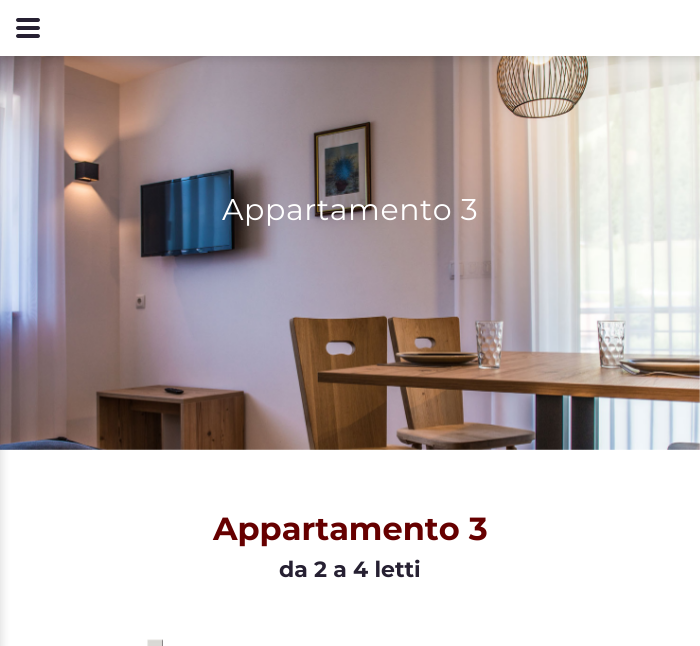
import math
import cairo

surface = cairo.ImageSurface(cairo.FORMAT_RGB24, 700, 646)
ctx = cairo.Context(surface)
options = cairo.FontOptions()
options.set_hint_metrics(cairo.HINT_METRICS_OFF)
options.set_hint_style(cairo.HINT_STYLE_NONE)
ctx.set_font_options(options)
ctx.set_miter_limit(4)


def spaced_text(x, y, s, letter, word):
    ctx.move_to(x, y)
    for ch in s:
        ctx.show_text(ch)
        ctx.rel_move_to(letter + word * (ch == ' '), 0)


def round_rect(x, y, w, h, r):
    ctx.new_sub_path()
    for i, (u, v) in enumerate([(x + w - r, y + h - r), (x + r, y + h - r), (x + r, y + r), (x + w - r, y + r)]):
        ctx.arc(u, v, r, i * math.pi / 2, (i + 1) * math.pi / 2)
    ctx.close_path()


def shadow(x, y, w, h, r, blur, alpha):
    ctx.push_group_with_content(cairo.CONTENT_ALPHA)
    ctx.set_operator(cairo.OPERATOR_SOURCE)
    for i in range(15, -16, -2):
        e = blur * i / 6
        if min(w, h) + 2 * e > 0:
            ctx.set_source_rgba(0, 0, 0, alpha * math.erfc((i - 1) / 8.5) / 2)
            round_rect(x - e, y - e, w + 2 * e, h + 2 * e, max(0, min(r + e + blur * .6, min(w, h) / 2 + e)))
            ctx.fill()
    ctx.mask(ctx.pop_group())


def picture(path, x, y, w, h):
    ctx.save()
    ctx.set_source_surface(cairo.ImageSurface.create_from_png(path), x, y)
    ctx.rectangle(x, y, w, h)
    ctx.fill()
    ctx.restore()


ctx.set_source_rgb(1, 1, 1)
ctx.paint()
picture("img1.png", 0, 56, 700, 394)
ctx.set_source_rgb(0, 0, 0)
shadow(-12, 4, 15, 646, 0, 4, 0.11)
shadow(3, 4, 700, 56, 0, 4, 0.11)
ctx.set_source_rgb(1, 1, 1)
ctx.rectangle(0, 0, 700, 56)
ctx.fill()
ctx.set_source_rgb(0.149, 0.125, 0.196)
ctx.new_path()
ctx.move_to(38, 30)
ctx.line_to(18, 30)
ctx.curve_to(17, 30, 16, 29, 16, 28)
ctx.curve_to(16, 27, 17, 26, 18, 26)
ctx.line_to(38, 26)
ctx.curve_to(39, 26, 40, 27, 40, 28)
ctx.curve_to(40, 29, 39, 30, 38, 30)
ctx.close_path()
ctx.move_to(38, 38)
ctx.line_to(18, 38)
ctx.curve_to(17, 38, 16, 37, 16, 36)
ctx.curve_to(16, 35, 17, 34, 18, 34)
ctx.line_to(38, 34)
ctx.curve_to(39, 34, 40, 35, 40, 36)
ctx.curve_to(40, 37, 39, 38, 38, 38)
ctx.close_path()
ctx.move_to(38, 22)
ctx.line_to(18, 22)
ctx.curve_to(17, 22, 16, 21, 16, 20)
ctx.curve_to(16, 19, 17, 18, 18, 18)
ctx.line_to(38, 18)
ctx.curve_to(39, 18, 40, 19, 40, 20)
ctx.curve_to(40, 21, 39, 22, 38, 22)
ctx.close_path()
ctx.fill()
ctx.select_font_face("Montserrat")
ctx.set_font_size(30)
ctx.set_source_rgb(1, 1, 1)
spaced_text(222, 220, "Appartamento 3", 0.6, 0)
ctx.select_font_face("Montserrat", cairo.FONT_SLANT_NORMAL, cairo.FONT_WEIGHT_BOLD)
ctx.set_font_size(32)
ctx.set_source_rgb(0.4, 0, 0)
ctx.move_to(213, 540)
ctx.show_text("Appartamento 3")
ctx.set_font_size(22)
ctx.set_source_rgb(0.149, 0.125, 0.196)
ctx.move_to(279, 577)
ctx.show_text("da 2 a 4 letti")
picture("img2.png", 147, 639, 16, 7)
surface.write_to_png("page.png")
